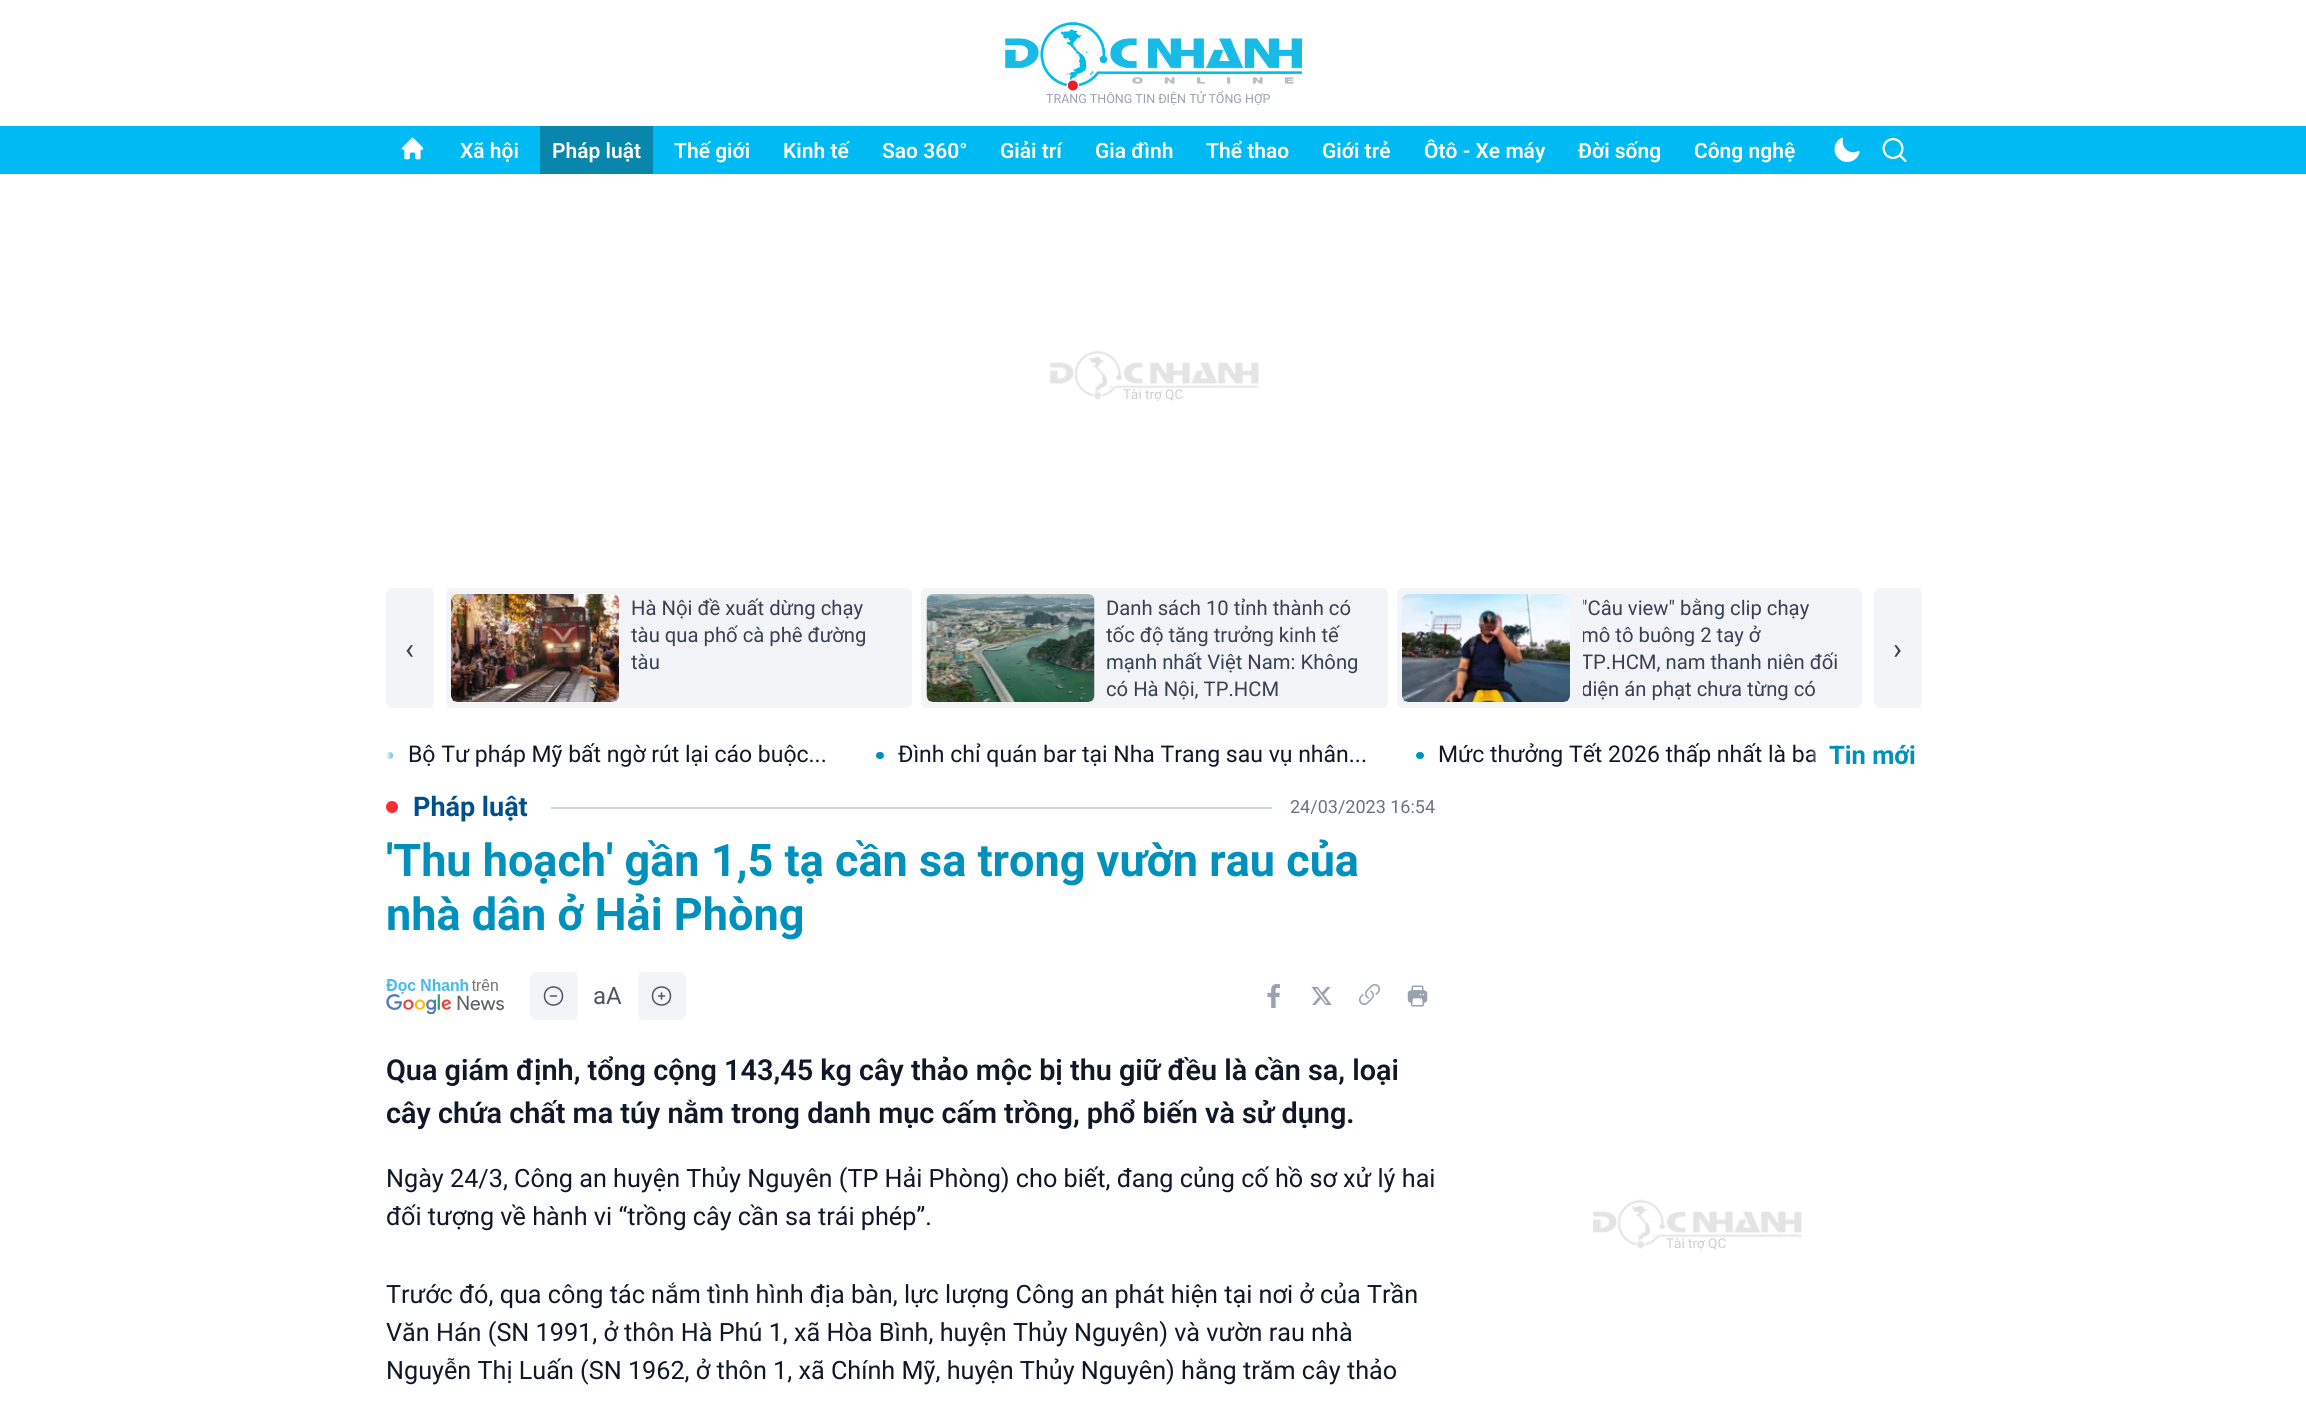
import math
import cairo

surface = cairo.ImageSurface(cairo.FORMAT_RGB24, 2306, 1406)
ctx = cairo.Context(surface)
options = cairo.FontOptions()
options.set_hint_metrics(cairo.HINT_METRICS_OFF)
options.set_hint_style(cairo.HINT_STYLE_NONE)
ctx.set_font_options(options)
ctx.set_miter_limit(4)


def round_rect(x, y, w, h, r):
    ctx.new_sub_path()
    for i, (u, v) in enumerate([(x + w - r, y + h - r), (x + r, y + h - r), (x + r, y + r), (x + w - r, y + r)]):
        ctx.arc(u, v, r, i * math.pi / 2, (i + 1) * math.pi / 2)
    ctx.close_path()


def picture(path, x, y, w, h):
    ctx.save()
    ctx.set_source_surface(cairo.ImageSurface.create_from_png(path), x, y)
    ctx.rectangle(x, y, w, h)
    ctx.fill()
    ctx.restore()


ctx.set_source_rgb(1, 1, 1)
ctx.paint()
picture("img1.png", 1005, 22, 297, 69)
ctx.select_font_face("Roboto")
ctx.set_font_size(12.5)
ctx.set_source_rgb(0.6, 0.631, 0.686)
ctx.move_to(1046, 103)
ctx.show_text("TRANG THÔNG TIN ĐIỆN TỬ TỔNG HỢP")
ctx.set_source_rgb(0, 0.733, 0.953)
ctx.rectangle(0, 126, 2306, 48)
ctx.fill()
picture("img2.png", 401, 137, 23, 23)
ctx.select_font_face("Roboto SemiBold")
ctx.set_font_size(21)
ctx.set_source_rgb(1, 1, 1)
ctx.move_to(460, 158)
ctx.show_text("Xã hội")
ctx.set_source_rgb(0.039, 0.525, 0.671)
ctx.rectangle(540, 126, 113, 48)
ctx.fill()
ctx.set_source_rgb(1, 1, 1)
ctx.move_to(552, 158)
ctx.show_text("Pháp luật")
ctx.move_to(674, 158)
ctx.show_text("Thế giới")
ctx.move_to(783, 158)
ctx.show_text("Kinh tế")
ctx.move_to(882, 158)
ctx.show_text("Sao 360°")
ctx.move_to(1000, 158)
ctx.show_text("Giải trí")
ctx.move_to(1095, 158)
ctx.show_text("Gia đình")
ctx.move_to(1206, 158)
ctx.show_text("Thể thao")
ctx.move_to(1322, 158)
ctx.show_text("Giới trẻ")
ctx.move_to(1424, 158)
ctx.show_text("Ôtô - Xe máy")
ctx.move_to(1578, 158)
ctx.show_text("Đời sống")
ctx.move_to(1694, 158)
ctx.show_text("Công nghệ")
picture("img3.png", 1834, 137, 26, 25)
picture("img4.png", 1882, 138, 25, 24)
picture("img5.png", 1050, 350, 209, 50)
ctx.select_font_face("Roboto")
ctx.set_font_size(13.5)
ctx.set_source_rgb(0.808, 0.808, 0.808)
ctx.move_to(1123, 399)
ctx.show_text("Tài trợ QC")
ctx.set_source_rgb(0.953, 0.957, 0.965)
round_rect(446, 588, 466, 120, 6)
ctx.fill()
ctx.set_source_rgb(0.945, 0.961, 0.976)
round_rect(452, 594, 168, 108, 6)
ctx.fill()
picture("img6.png", 451, 594, 168, 108)
ctx.set_font_size(20.25)
ctx.set_source_rgb(0.212, 0.255, 0.325)
ctx.move_to(631, 615)
ctx.show_text("Hà Nội đề xuất dừng chạy")
ctx.move_to(631, 642)
ctx.show_text("tàu qua phố cà phê đường")
ctx.move_to(631, 669)
ctx.show_text("tàu")
ctx.set_source_rgb(0.953, 0.957, 0.965)
round_rect(921, 588, 467, 120, 6)
ctx.fill()
ctx.set_source_rgb(0.945, 0.961, 0.976)
round_rect(927, 594, 168, 108, 6)
ctx.fill()
picture("img7.png", 926, 594, 169, 108)
ctx.set_source_rgb(0.212, 0.255, 0.325)
ctx.move_to(1106, 615)
ctx.show_text("Danh sách 10 tỉnh thành có")
ctx.move_to(1106, 642)
ctx.show_text("tốc độ tăng trưởng kinh tế")
ctx.move_to(1106, 669)
ctx.show_text("mạnh nhất Việt Nam: Không")
ctx.move_to(1106, 696)
ctx.show_text("có Hà Nội, TP.HCM")
ctx.set_source_rgb(0.953, 0.957, 0.965)
round_rect(1397, 588, 465, 120, 6)
ctx.fill()
ctx.set_source_rgb(0.945, 0.961, 0.976)
round_rect(1403, 594, 168, 108, 6)
ctx.fill()
picture("img8.png", 1402, 594, 168, 108)
ctx.save()
ctx.rectangle(1583, 594, 273, 108)
ctx.clip()
ctx.set_source_rgb(0.212, 0.255, 0.325)
ctx.move_to(1581, 615)
ctx.show_text("\"Câu view\" bằng clip chạy")
ctx.move_to(1581, 642)
ctx.show_text("mô tô buông 2 tay ở")
ctx.move_to(1581, 669)
ctx.show_text("TP.HCM, nam thanh niên đối")
ctx.move_to(1581, 696)
ctx.show_text("diện án phạt chưa từng có")
ctx.restore()
ctx.set_source_rgb(0.953, 0.957, 0.965)
round_rect(386, 588, 48, 120, 6)
ctx.fill()
ctx.set_font_size(30)
ctx.set_source_rgb(0.212, 0.255, 0.325)
ctx.move_to(405, 659)
ctx.show_text("‹")
ctx.set_source_rgb(0.953, 0.957, 0.965)
round_rect(1874, 588, 48, 120, 6)
ctx.fill()
ctx.set_source_rgb(0.212, 0.255, 0.325)
ctx.move_to(1893, 659)
ctx.show_text("›")
ctx.set_source_rgb(0, 0.565, 0.737)
ctx.new_path()
ctx.arc(389.5, 755.5, 3.5, 0, 2 * math.pi)
ctx.fill()
ctx.set_font_size(23)
ctx.set_source_rgb(0.063, 0.094, 0.157)
ctx.move_to(408, 762)
ctx.show_text("Bộ Tư pháp Mỹ bất ngờ rút lại cáo buộc...")
ctx.set_source_rgb(0, 0.565, 0.737)
round_rect(876, 752, 8, 7, 3.5)
ctx.fill()
ctx.set_source_rgb(0.063, 0.094, 0.157)
ctx.move_to(898, 762)
ctx.show_text("Đình chỉ quán bar tại Nha Trang sau vụ nhân...")
ctx.set_source_rgb(0, 0.565, 0.737)
round_rect(1416, 752, 8, 7, 3.5)
ctx.fill()
ctx.set_source_rgb(0.063, 0.094, 0.157)
ctx.move_to(1438, 762)
ctx.show_text("Mức thưởng Tết 2026 thấp nhất là ba")
gradient = cairo.LinearGradient(386, 756, 398, 756)
gradient.add_color_stop_rgba(0, 1, 1, 1, 1)
gradient.add_color_stop_rgba(1, 1, 1, 1, 0)
ctx.set_source(gradient)
ctx.rectangle(386, 752, 7, 7)
ctx.fill()
gradient = cairo.LinearGradient(1823, 756, 1811, 756)
gradient.add_color_stop_rgba(0, 1, 1, 1, 1)
gradient.add_color_stop_rgba(1, 1, 1, 1, 0)
ctx.set_source(gradient)
ctx.rectangle(1811, 749, 6, 13)
ctx.fill()
ctx.select_font_face("Roboto", cairo.FONT_SLANT_NORMAL, cairo.FONT_WEIGHT_BOLD)
ctx.set_font_size(25.5)
ctx.set_source_rgb(0, 0.565, 0.737)
ctx.move_to(1829, 764)
ctx.show_text("Tin mới")
ctx.set_source_rgb(0.984, 0.173, 0.212)
ctx.new_path()
ctx.arc(392, 807, 6, 0, 2 * math.pi)
ctx.fill()
ctx.set_font_size(27)
ctx.set_source_rgb(0, 0.31, 0.545)
ctx.move_to(413, 816)
ctx.show_text("Pháp luật")
ctx.set_source_rgb(0.792, 0.835, 0.886)
ctx.rectangle(551, 807, 721, 2)
ctx.fill()
ctx.select_font_face("Roboto")
ctx.set_font_size(18)
ctx.set_source_rgb(0.416, 0.447, 0.51)
ctx.move_to(1290, 813)
ctx.show_text("24/03/2023 16:54")
ctx.select_font_face("Roboto", cairo.FONT_SLANT_NORMAL, cairo.FONT_WEIGHT_BOLD)
ctx.set_font_size(45)
ctx.set_source_rgb(0, 0.565, 0.737)
ctx.move_to(386, 876)
ctx.show_text("'Thu hoạch' gần 1,5 tạ cần sa trong vườn rau của")
ctx.move_to(386, 930)
ctx.show_text("nhà dân ở Hải Phòng")
picture("img9.png", 386, 979, 118, 35)
ctx.set_source_rgb(0.953, 0.957, 0.965)
round_rect(530, 972, 48, 48, 6)
ctx.fill()
ctx.new_path()
ctx.move_to(556.5, 996)
ctx.line_to(550.5, 996)
ctx.move_to(562.5, 996)
ctx.curve_to(562.5, 1008, 544.5, 1008, 544.5, 996)
ctx.curve_to(544.5, 984, 562.5, 984, 562.5, 996)
ctx.close_path()
ctx.set_source_rgb(0.29, 0.333, 0.396)
ctx.set_line_width(1.5)
ctx.set_line_cap(cairo.LINE_CAP_ROUND)
ctx.set_line_join(cairo.LINE_JOIN_ROUND)
ctx.stroke()
ctx.select_font_face("Roboto")
ctx.set_font_size(24)
ctx.move_to(593, 1004)
ctx.show_text("aA")
ctx.set_source_rgb(0.953, 0.957, 0.965)
round_rect(638, 972, 48, 48, 6)
ctx.fill()
ctx.new_path()
ctx.move_to(661.5, 993)
ctx.line_to(661.5, 999)
ctx.move_to(664.5, 996)
ctx.line_to(658.5, 996)
ctx.move_to(670.5, 996)
ctx.curve_to(670.5, 1008, 652.5, 1008, 652.5, 996)
ctx.curve_to(652.5, 984, 670.5, 984, 670.5, 996)
ctx.close_path()
ctx.set_source_rgb(0.29, 0.333, 0.396)
ctx.stroke()
picture("img10.png", 1267, 984, 13, 24)
picture("img11.png", 1311, 987, 21, 18)
picture("img12.png", 1359, 984, 21, 21)
picture("img13.png", 1407, 985, 21, 22)
ctx.select_font_face("Roboto SemiBold")
ctx.set_font_size(28.8)
ctx.set_source_rgb(0.063, 0.094, 0.157)
ctx.move_to(386, 1080)
ctx.show_text("Qua giám định, tổng cộng 143,45 kg cây thảo mộc bị thu giữ đều là cần sa, loại")
ctx.move_to(386, 1123)
ctx.show_text("cây chứa chất ma túy nằm trong danh mục cấm trồng, phổ biến và sử dụng.")
ctx.select_font_face("Roboto")
ctx.set_font_size(25.2)
ctx.move_to(386, 1187)
ctx.show_text("Ngày 24/3, Công an huyện Thủy Nguyên (TP Hải Phòng) cho biết, đang củng cố hồ sơ xử lý hai")
ctx.move_to(386, 1225)
ctx.show_text("đối tượng về hành vi “trồng cây cần sa trái phép”.")
ctx.move_to(386, 1303)
ctx.show_text("Trước đó, qua công tác nắm tình hình địa bàn, lực lượng Công an phát hiện tại nơi ở của Trần")
ctx.move_to(386, 1341)
ctx.show_text("Văn Hán (SN 1991, ở thôn Hà Phú 1, xã Hòa Bình, huyện Thủy Nguyên) và vườn rau nhà")
ctx.move_to(386, 1379)
ctx.show_text("Nguyễn Thị Luấn (SN 1962, ở thôn 1, xã Chính Mỹ, huyện Thủy Nguyên) hằng trăm cây thảo")
picture("img5.png", 1593, 1199, 209, 50)
ctx.set_font_size(13.5)
ctx.set_source_rgb(0.808, 0.808, 0.808)
ctx.move_to(1666, 1248)
ctx.show_text("Tài trợ QC")
surface.write_to_png("page.png")
